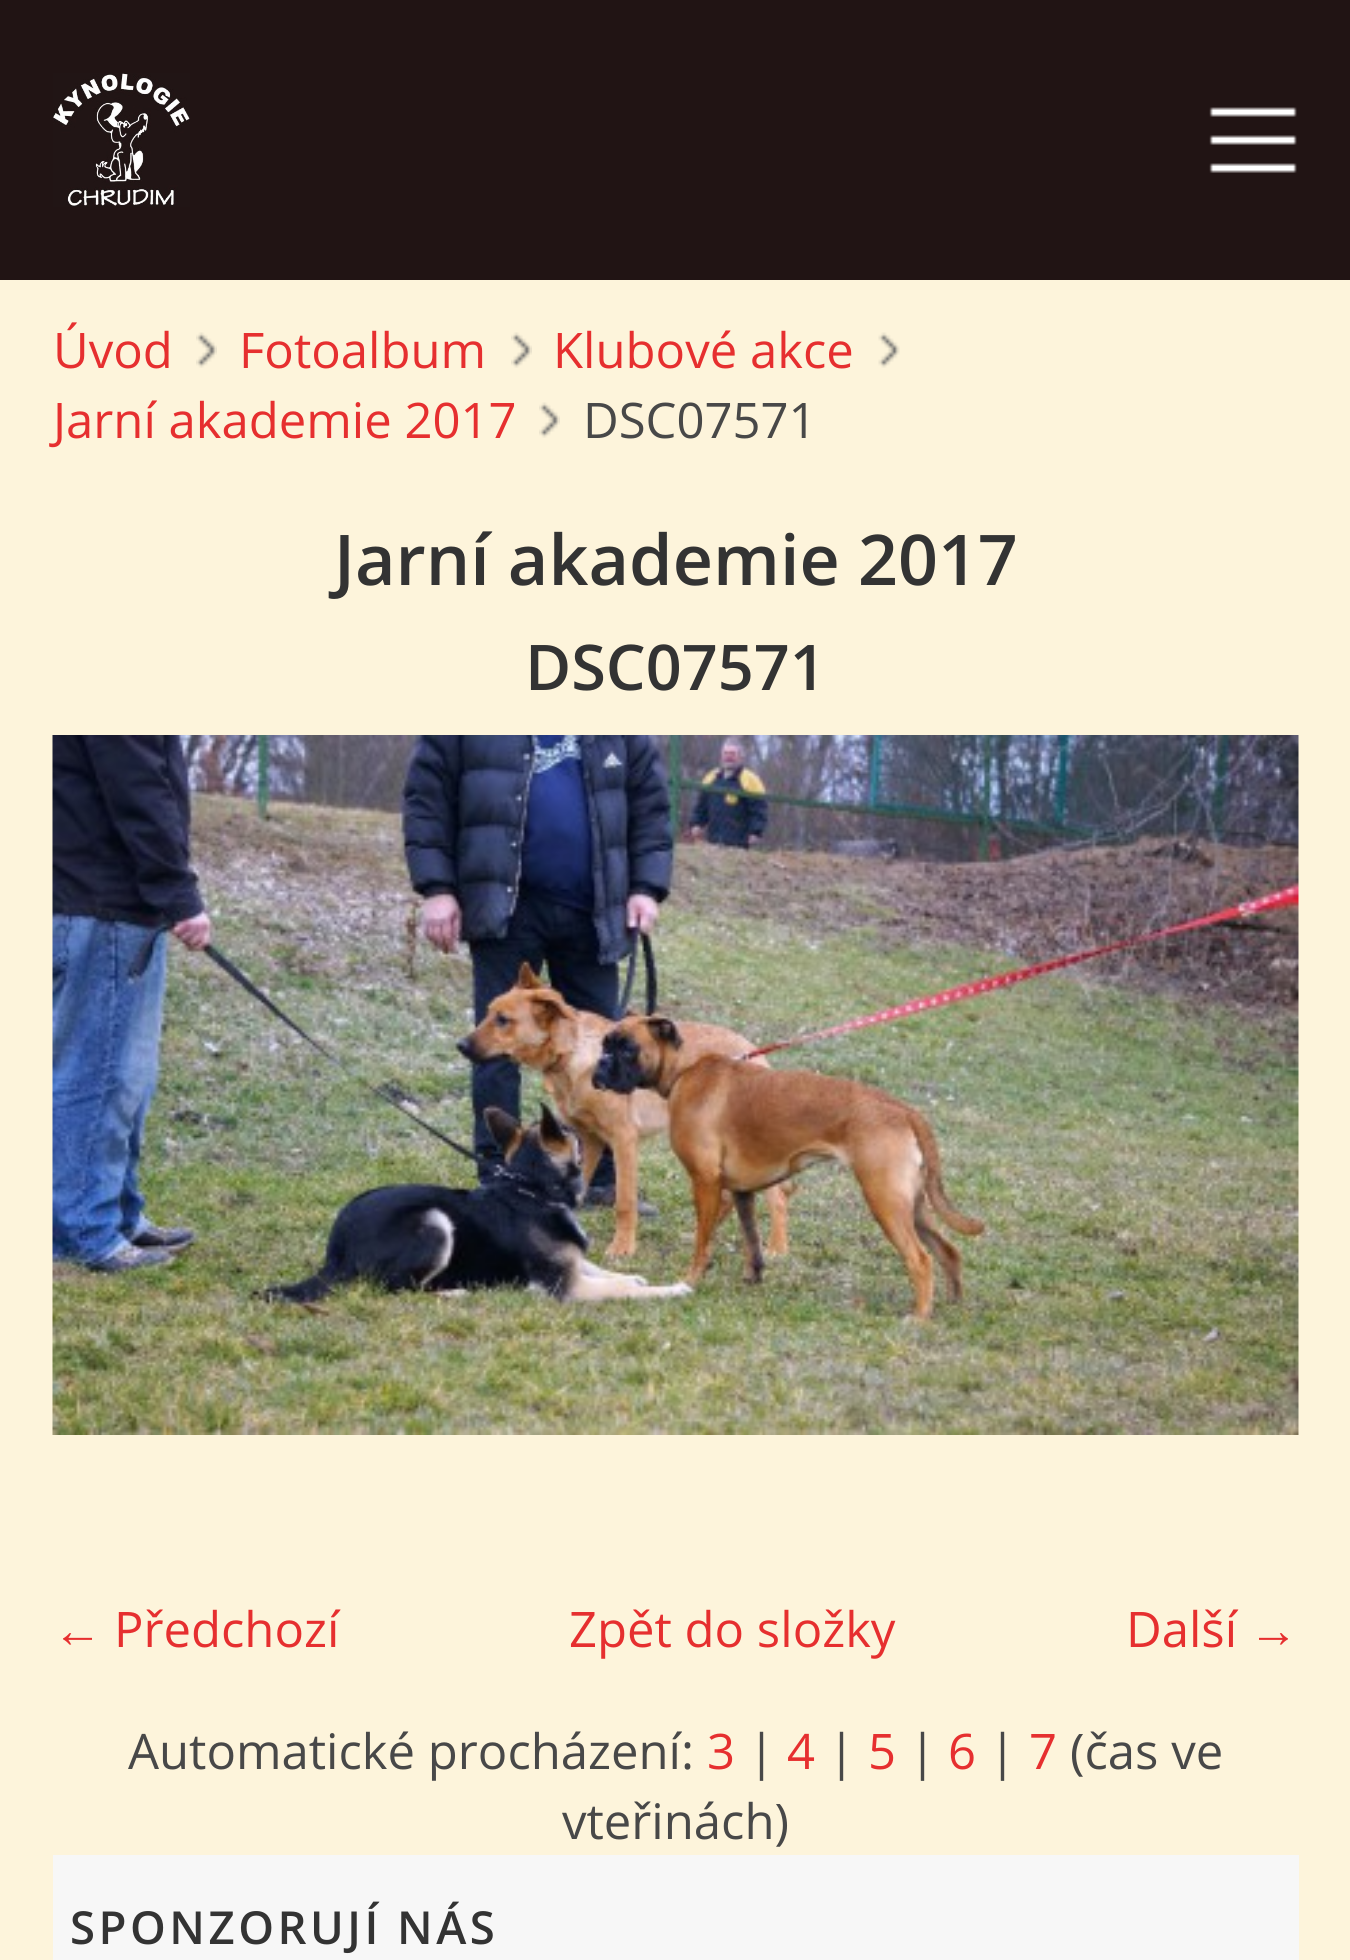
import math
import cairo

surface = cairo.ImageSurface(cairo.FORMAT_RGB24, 1350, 1960)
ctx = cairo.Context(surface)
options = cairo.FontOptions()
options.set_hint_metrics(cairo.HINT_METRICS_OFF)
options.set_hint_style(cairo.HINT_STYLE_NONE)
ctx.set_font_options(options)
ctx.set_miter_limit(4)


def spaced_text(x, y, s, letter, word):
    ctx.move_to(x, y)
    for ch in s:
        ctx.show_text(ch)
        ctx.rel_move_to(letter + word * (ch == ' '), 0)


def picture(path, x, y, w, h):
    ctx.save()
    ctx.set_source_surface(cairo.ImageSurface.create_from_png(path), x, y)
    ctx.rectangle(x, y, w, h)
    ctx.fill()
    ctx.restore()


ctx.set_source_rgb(0.992, 0.957, 0.859)
ctx.paint()
ctx.set_source_rgb(0.129, 0.082, 0.082)
ctx.rectangle(0, 0, 1350, 280)
ctx.fill()
picture("img1.png", 53, 73, 137, 134)
picture("img2.png", 1209, 107, 88, 66)
picture("img3.png", 196, 332, 21, 36)
ctx.select_font_face("Open Sans")
ctx.set_font_size(49)
ctx.set_source_rgb(0.902, 0.184, 0.184)
ctx.move_to(53, 368)
ctx.show_text("Úvod")
picture("img4.png", 511, 332, 21, 36)
ctx.move_to(239, 368)
ctx.show_text("Fotoalbum")
picture("img5.png", 878, 332, 22, 36)
ctx.move_to(553, 368)
ctx.show_text("Klubové akce")
picture("img3.png", 539, 402, 21, 36)
ctx.move_to(53, 438)
ctx.show_text("Jarní akademie 2017")
ctx.set_source_rgb(0.282, 0.282, 0.282)
ctx.move_to(583, 438)
ctx.show_text("DSC07571")
ctx.select_font_face("Open Sans SemiBold")
ctx.set_font_size(70)
ctx.set_source_rgb(0.2, 0.2, 0.2)
ctx.move_to(334, 585)
ctx.show_text("Jarní akademie 2017")
ctx.set_font_size(63)
ctx.move_to(525, 690)
ctx.show_text("DSC07571")
picture("img6.png", 52, 735, 1247, 700)
ctx.select_font_face("Liberation Serif")
ctx.set_font_size(49)
ctx.set_source_rgb(0.902, 0.184, 0.184)
ctx.move_to(53, 1647)
ctx.show_text("←")
ctx.select_font_face("Open Sans")
ctx.move_to(114, 1647)
ctx.show_text("Předchozí")
ctx.move_to(569, 1647)
ctx.show_text("Zpět do složky")
ctx.move_to(1126, 1647)
ctx.show_text("Další")
ctx.select_font_face("Liberation Serif")
ctx.move_to(1249, 1647)
ctx.show_text("→")
ctx.select_font_face("Open Sans")
ctx.set_source_rgb(0.282, 0.282, 0.282)
ctx.move_to(128, 1769)
ctx.show_text("Automatické procházení:")
ctx.set_source_rgb(0.902, 0.184, 0.184)
ctx.move_to(707, 1769)
ctx.show_text("3")
ctx.set_source_rgb(0.282, 0.282, 0.282)
ctx.move_to(748, 1769)
ctx.show_text("|")
ctx.set_source_rgb(0.902, 0.184, 0.184)
ctx.move_to(787, 1769)
ctx.show_text("4")
ctx.set_source_rgb(0.282, 0.282, 0.282)
ctx.move_to(828, 1769)
ctx.show_text("|")
ctx.set_source_rgb(0.902, 0.184, 0.184)
ctx.move_to(868, 1769)
ctx.show_text("5")
ctx.set_source_rgb(0.282, 0.282, 0.282)
ctx.move_to(909, 1769)
ctx.show_text("|")
ctx.set_source_rgb(0.902, 0.184, 0.184)
ctx.move_to(948, 1769)
ctx.show_text("6")
ctx.set_source_rgb(0.282, 0.282, 0.282)
ctx.move_to(989, 1769)
ctx.show_text("|")
ctx.set_source_rgb(0.902, 0.184, 0.184)
ctx.move_to(1029, 1769)
ctx.show_text("7")
ctx.set_source_rgb(0.282, 0.282, 0.282)
ctx.move_to(1070, 1769)
ctx.show_text("(čas ve")
ctx.move_to(562, 1839)
ctx.show_text("vteřinách)")
ctx.set_source_rgb(0.965, 0.965, 0.965)
ctx.rectangle(53, 1855, 1246, 105)
ctx.fill()
ctx.select_font_face("Open Sans SemiBold")
ctx.set_font_size(45.5)
ctx.set_source_rgb(0.2, 0.2, 0.2)
spaced_text(70, 1944, "SPONZORUJÍ NÁS", 3.5, 0)
surface.write_to_png("page.png")
